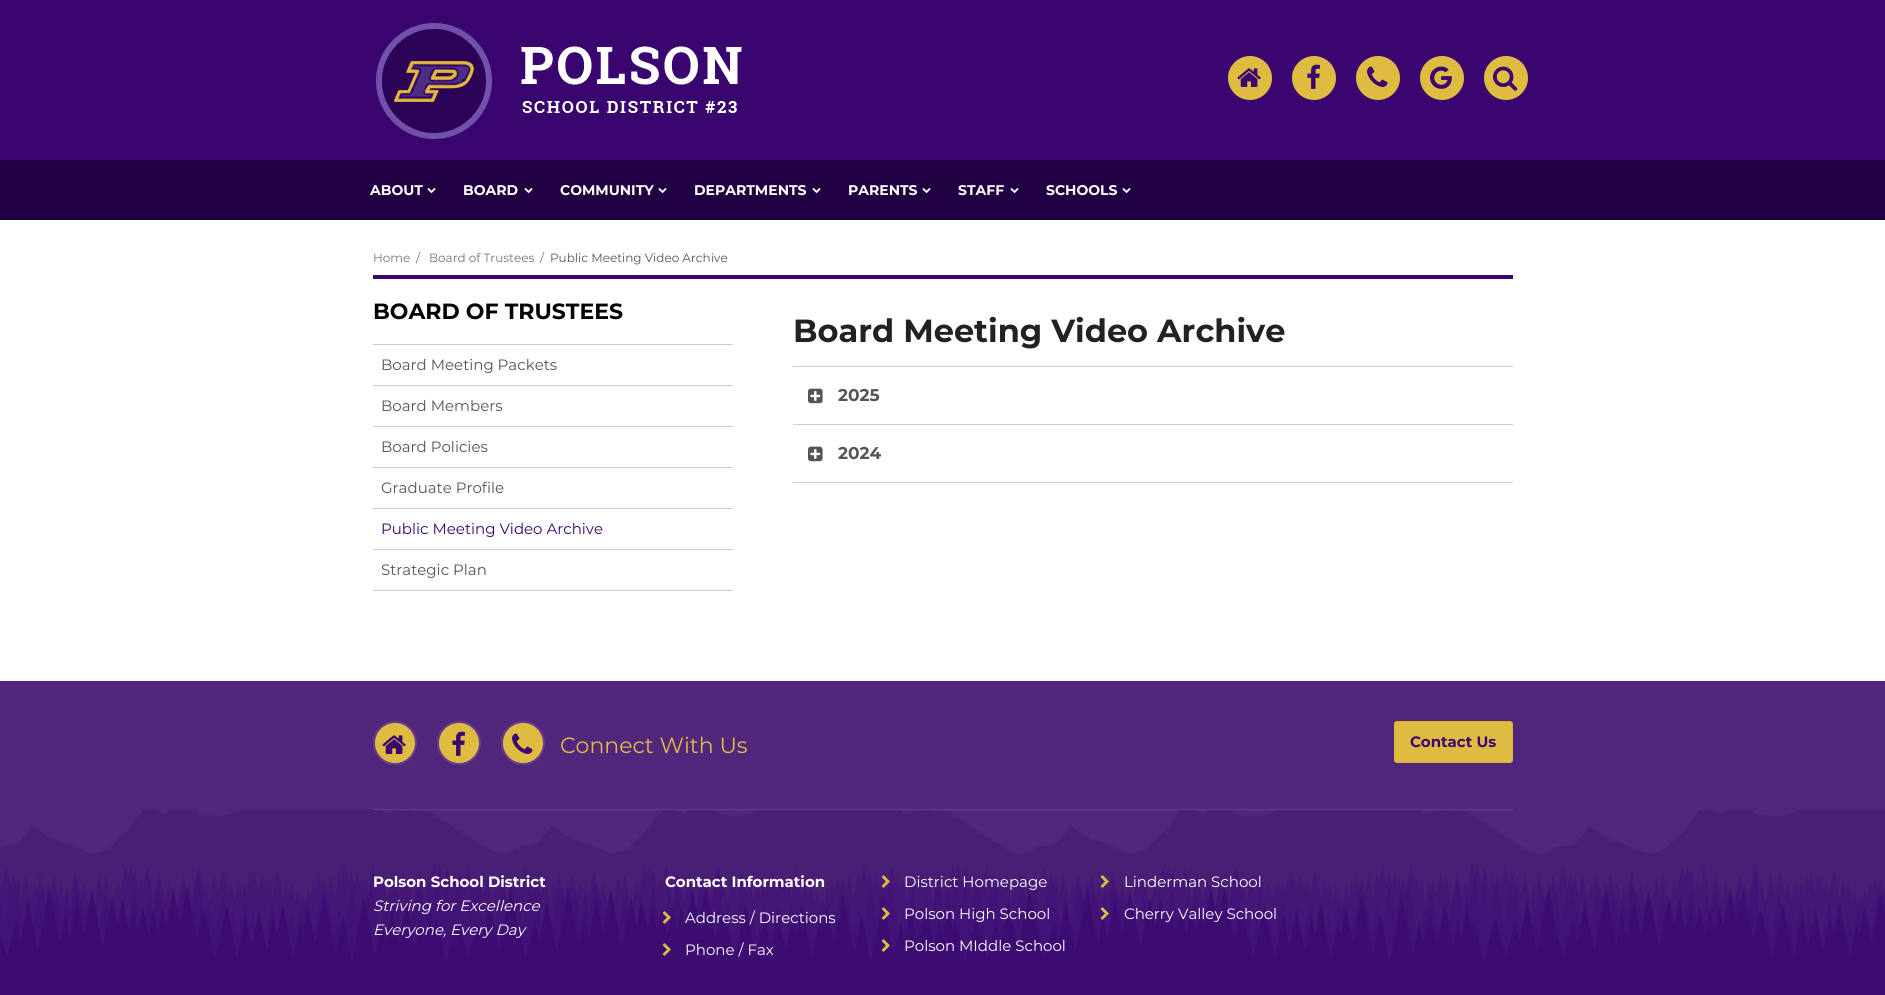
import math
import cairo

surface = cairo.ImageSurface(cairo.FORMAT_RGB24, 1885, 995)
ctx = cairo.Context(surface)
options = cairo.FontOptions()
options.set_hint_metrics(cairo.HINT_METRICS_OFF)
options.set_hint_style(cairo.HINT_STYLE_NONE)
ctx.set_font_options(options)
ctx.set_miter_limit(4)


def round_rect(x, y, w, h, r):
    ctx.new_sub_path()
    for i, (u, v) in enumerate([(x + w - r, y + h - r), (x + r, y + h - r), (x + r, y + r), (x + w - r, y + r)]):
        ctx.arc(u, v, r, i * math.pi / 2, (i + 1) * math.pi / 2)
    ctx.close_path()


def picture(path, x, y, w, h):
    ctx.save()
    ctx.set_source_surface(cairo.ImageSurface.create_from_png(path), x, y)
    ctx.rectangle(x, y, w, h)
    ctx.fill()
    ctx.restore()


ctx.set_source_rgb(1, 1, 1)
ctx.paint()
ctx.set_source_rgb(0.224, 0.02, 0.431)
ctx.rectangle(0, 0, 1885, 160)
ctx.fill()
picture("img1.png", 376, 23, 366, 116)
ctx.set_source_rgb(0.878, 0.733, 0.255)
ctx.arc(1250, 78, 22, 0, 2 * math.pi)
ctx.fill()
picture("img2.png", 1237, 68, 24, 19)
ctx.arc(1314, 78, 22, 0, 2 * math.pi)
ctx.fill()
picture("img3.png", 1307, 64, 13, 25)
ctx.arc(1378, 78, 22, 0, 2 * math.pi)
ctx.fill()
picture("img4.png", 1367, 66, 21, 21)
ctx.arc(1442, 78, 22, 0, 2 * math.pi)
ctx.fill()
picture("img5.png", 1430, 66, 22, 23)
ctx.arc(1506, 78, 22, 0, 2 * math.pi)
ctx.fill()
picture("img6.png", 1493, 66, 25, 25)
ctx.set_source_rgb(0.129, 0, 0.259)
ctx.rectangle(0, 160, 1885, 60)
ctx.fill()
ctx.select_font_face("Montserrat", cairo.FONT_SLANT_NORMAL, cairo.FONT_WEIGHT_BOLD)
ctx.set_font_size(14)
ctx.set_source_rgb(1, 1, 1)
ctx.move_to(370, 195)
ctx.show_text("ABOUT")
picture("img7.png", 427, 188, 9, 6)
ctx.move_to(463, 195)
ctx.show_text("BOARD")
picture("img7.png", 524, 188, 9, 6)
ctx.move_to(560, 195)
ctx.show_text("COMMUNITY")
picture("img7.png", 658, 188, 9, 6)
ctx.move_to(694, 195)
ctx.show_text("DEPARTMENTS")
picture("img7.png", 812, 188, 9, 6)
ctx.move_to(848, 195)
ctx.show_text("PARENTS")
picture("img7.png", 922, 188, 9, 6)
ctx.move_to(958, 195)
ctx.show_text("STAFF")
picture("img7.png", 1010, 188, 9, 6)
ctx.move_to(1046, 195)
ctx.show_text("SCHOOLS")
picture("img7.png", 1122, 188, 9, 6)
ctx.set_source_rgb(0.224, 0.02, 0.431)
ctx.rectangle(373, 275, 1140, 4)
ctx.fill()
ctx.select_font_face("Montserrat")
ctx.set_font_size(12)
ctx.set_source_rgb(0.455, 0.455, 0.455)
ctx.move_to(373, 262)
ctx.show_text("Home")
ctx.move_to(416, 262)
ctx.show_text("/")
ctx.move_to(429, 262)
ctx.show_text("Board of Trustees")
ctx.move_to(540, 262)
ctx.show_text("/")
ctx.set_source_rgb(0.333, 0.333, 0.333)
ctx.move_to(550, 262)
ctx.show_text("Public Meeting Video Archive")
ctx.select_font_face("Montserrat", cairo.FONT_SLANT_NORMAL, cairo.FONT_WEIGHT_BOLD)
ctx.set_font_size(22)
ctx.set_source_rgb(0, 0, 0)
ctx.move_to(373, 319)
ctx.show_text("BOARD OF TRUSTEES")
ctx.set_source_rgb(0.8, 0.8, 0.8)
ctx.rectangle(373, 344, 360, 1)
ctx.fill()
ctx.rectangle(373, 385, 360, 1)
ctx.fill()
ctx.select_font_face("Montserrat")
ctx.set_font_size(15)
ctx.set_source_rgb(0.333, 0.333, 0.333)
ctx.move_to(381, 370)
ctx.show_text("Board Meeting Packets")
ctx.set_source_rgb(0.8, 0.8, 0.8)
ctx.rectangle(373, 426, 360, 1)
ctx.fill()
ctx.set_source_rgb(0.333, 0.333, 0.333)
ctx.move_to(381, 411)
ctx.show_text("Board Members")
ctx.set_source_rgb(0.8, 0.8, 0.8)
ctx.rectangle(373, 467, 360, 1)
ctx.fill()
ctx.set_source_rgb(0.333, 0.333, 0.333)
ctx.move_to(381, 452)
ctx.show_text("Board Policies")
ctx.set_source_rgb(0.8, 0.8, 0.8)
ctx.rectangle(373, 508, 360, 1)
ctx.fill()
ctx.set_source_rgb(0.333, 0.333, 0.333)
ctx.move_to(381, 493)
ctx.show_text("Graduate Profile")
ctx.set_source_rgb(0.8, 0.8, 0.8)
ctx.rectangle(373, 549, 360, 1)
ctx.fill()
ctx.set_source_rgb(0.224, 0.02, 0.431)
ctx.move_to(381, 534)
ctx.show_text("Public Meeting Video Archive")
ctx.set_source_rgb(0.8, 0.8, 0.8)
ctx.rectangle(373, 590, 360, 1)
ctx.fill()
ctx.set_source_rgb(0.333, 0.333, 0.333)
ctx.move_to(381, 575)
ctx.show_text("Strategic Plan")
ctx.select_font_face("Montserrat", cairo.FONT_SLANT_NORMAL, cairo.FONT_WEIGHT_BOLD)
ctx.set_font_size(32)
ctx.set_source_rgb(0.133, 0.133, 0.133)
ctx.move_to(793, 342)
ctx.show_text("Board Meeting Video Archive")
ctx.set_source_rgb(0.8, 0.8, 0.8)
ctx.rectangle(793, 366, 720, 1)
ctx.fill()
ctx.rectangle(793, 424, 720, 1)
ctx.fill()
picture("img8.png", 808, 388, 15, 16)
ctx.set_font_size(17)
ctx.set_source_rgb(0.333, 0.333, 0.333)
ctx.move_to(838, 401)
ctx.show_text("2025")
ctx.set_source_rgb(0.8, 0.8, 0.8)
ctx.rectangle(793, 482, 720, 1)
ctx.fill()
picture("img8.png", 808, 446, 15, 16)
ctx.set_source_rgb(0.333, 0.333, 0.333)
ctx.move_to(838, 459)
ctx.show_text("2024")
ctx.set_source_rgb(0.318, 0.149, 0.49)
ctx.rectangle(0, 681, 1885, 129)
ctx.fill()
ctx.set_source_rgb(0.878, 0.733, 0.255)
ctx.arc(395, 743, 21, 0, 2 * math.pi)
ctx.fill_preserve()
ctx.set_source_rgb(0.396, 0.239, 0.557)
ctx.stroke()
picture("img2.png", 382, 735, 24, 19)
ctx.set_source_rgb(0.878, 0.733, 0.255)
ctx.arc(459, 743, 21, 0, 2 * math.pi)
ctx.fill_preserve()
ctx.set_source_rgb(0.396, 0.239, 0.557)
ctx.stroke()
picture("img3.png", 452, 731, 13, 25)
ctx.set_source_rgb(0.878, 0.733, 0.255)
ctx.arc(523, 743, 21, 0, 2 * math.pi)
ctx.fill_preserve()
ctx.set_source_rgb(0.396, 0.239, 0.557)
ctx.stroke()
picture("img4.png", 512, 733, 21, 21)
ctx.select_font_face("Montserrat")
ctx.set_font_size(22)
ctx.set_source_rgb(0.878, 0.733, 0.255)
ctx.move_to(560, 753)
ctx.show_text("Connect With Us")
round_rect(1394.5, 721.5, 118, 41, 2.5)
ctx.fill_preserve()
ctx.set_source_rgb(0.863, 0.702, 0.169)
ctx.set_line_width(1)
ctx.stroke()
ctx.select_font_face("Montserrat", cairo.FONT_SLANT_NORMAL, cairo.FONT_WEIGHT_BOLD)
ctx.set_font_size(15)
ctx.set_source_rgb(0.224, 0.02, 0.431)
ctx.move_to(1410, 747)
ctx.show_text("Contact Us")
ctx.set_source_rgb(0.396, 0.239, 0.557)
ctx.rectangle(373, 809, 1140, 1)
ctx.fill()
picture("img9.png", 0, 810, 1885, 185)
ctx.set_source_rgb(1, 1, 1)
ctx.move_to(373, 887)
ctx.show_text("Polson School District")
ctx.select_font_face("Montserrat", cairo.FONT_SLANT_ITALIC)
ctx.move_to(373, 911)
ctx.show_text("Striving for Excellence")
ctx.move_to(373, 935)
ctx.show_text("Everyone, Every Day")
ctx.select_font_face("Montserrat", cairo.FONT_SLANT_NORMAL, cairo.FONT_WEIGHT_BOLD)
ctx.move_to(665, 887)
ctx.show_text("Contact Information")
picture("img10.png", 662, 911, 9, 13)
ctx.select_font_face("Montserrat")
ctx.move_to(685, 923)
ctx.show_text("Address / Directions")
picture("img11.png", 662, 943, 9, 13)
ctx.move_to(685, 955)
ctx.show_text("Phone / Fax")
picture("img12.png", 881, 875, 9, 13)
ctx.move_to(904, 887)
ctx.show_text("District Homepage")
picture("img13.png", 881, 907, 9, 13)
ctx.move_to(904, 919)
ctx.show_text("Polson High School")
picture("img14.png", 881, 939, 9, 13)
ctx.move_to(904, 951)
ctx.show_text("Polson MIddle School")
picture("img15.png", 1100, 875, 9, 13)
ctx.move_to(1124, 887)
ctx.show_text("Linderman School")
picture("img16.png", 1100, 907, 9, 13)
ctx.move_to(1124, 919)
ctx.show_text("Cherry Valley School")
surface.write_to_png("page.png")
